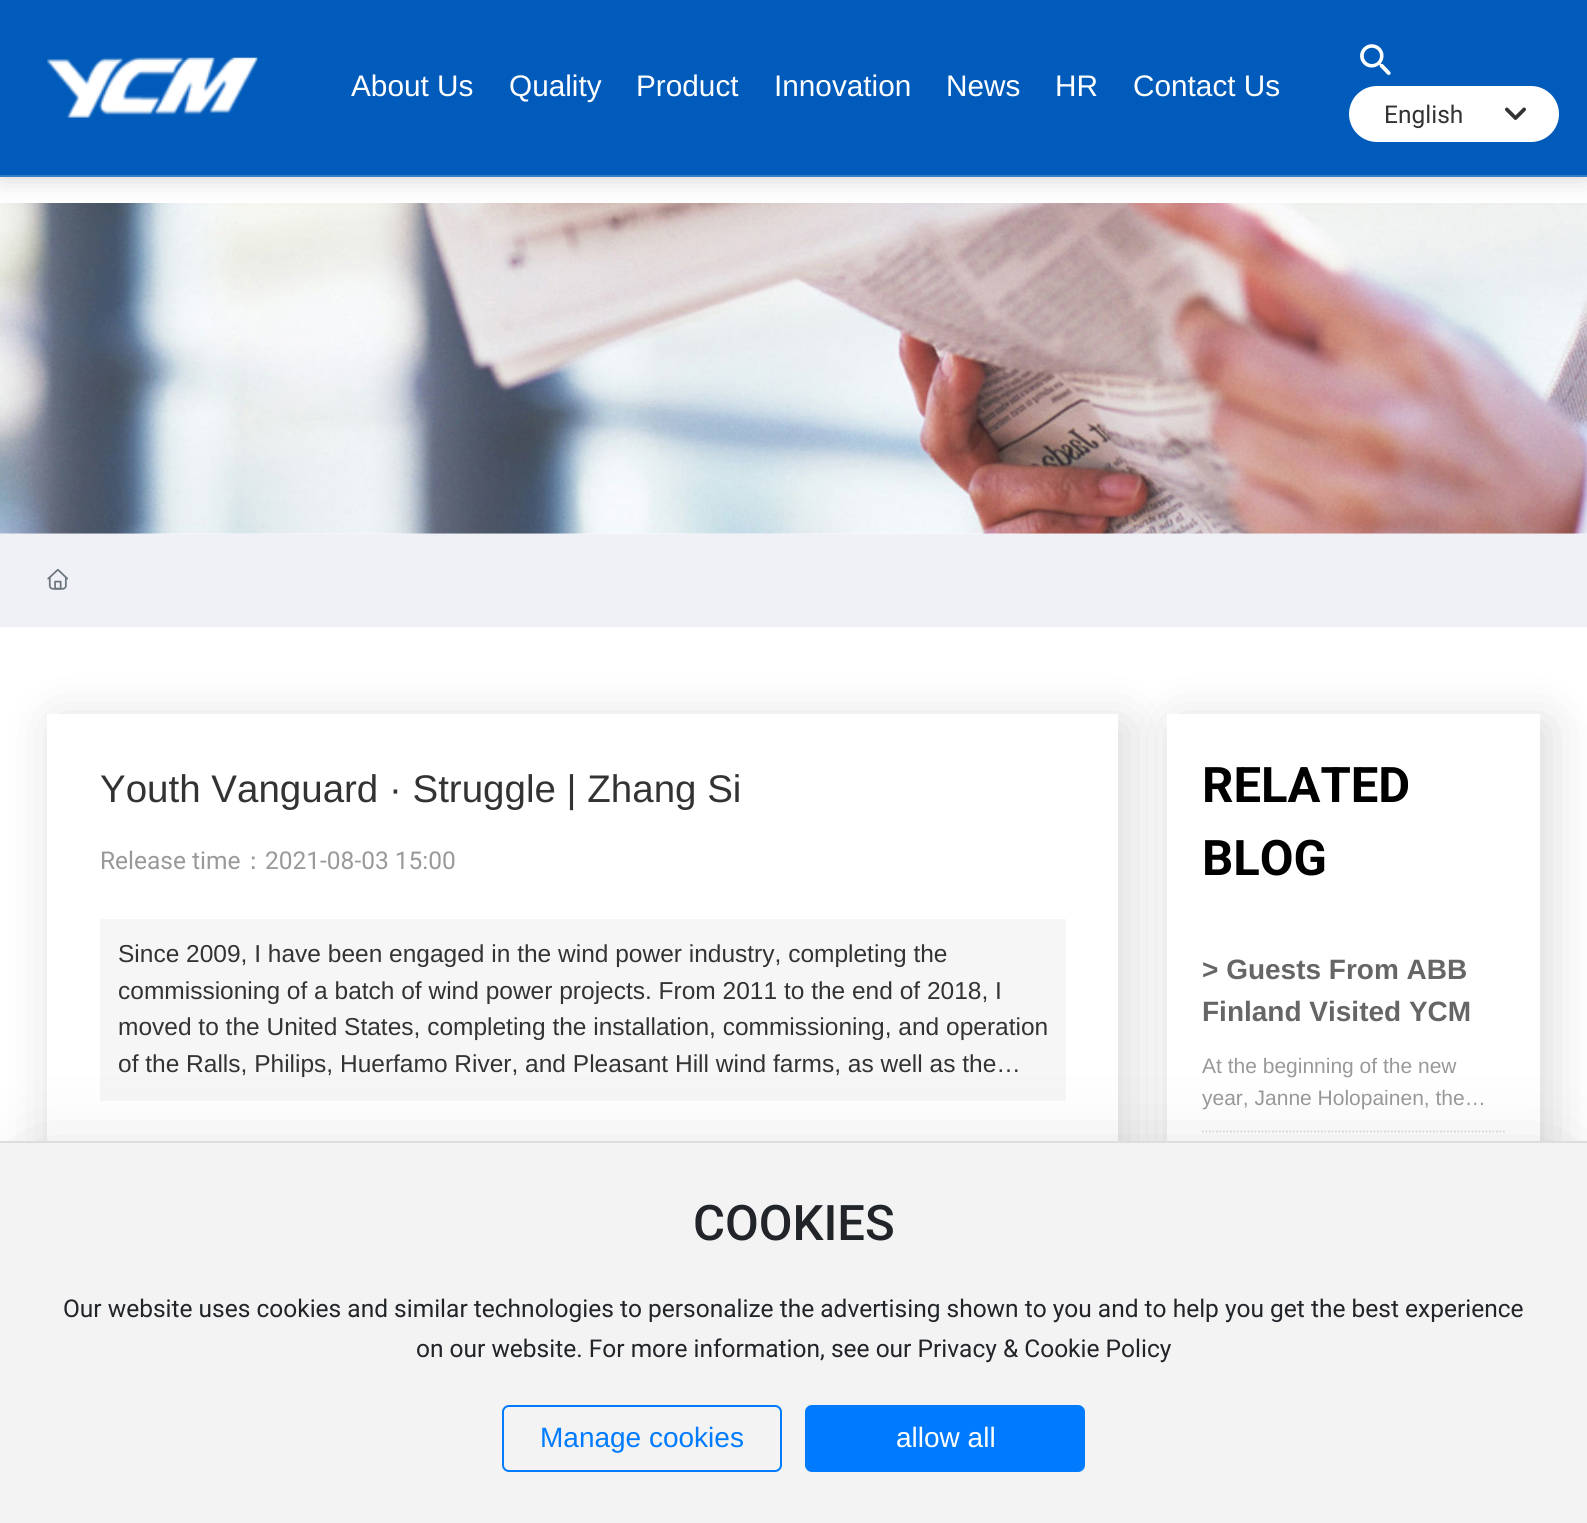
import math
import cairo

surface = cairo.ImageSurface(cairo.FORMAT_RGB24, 1587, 1523)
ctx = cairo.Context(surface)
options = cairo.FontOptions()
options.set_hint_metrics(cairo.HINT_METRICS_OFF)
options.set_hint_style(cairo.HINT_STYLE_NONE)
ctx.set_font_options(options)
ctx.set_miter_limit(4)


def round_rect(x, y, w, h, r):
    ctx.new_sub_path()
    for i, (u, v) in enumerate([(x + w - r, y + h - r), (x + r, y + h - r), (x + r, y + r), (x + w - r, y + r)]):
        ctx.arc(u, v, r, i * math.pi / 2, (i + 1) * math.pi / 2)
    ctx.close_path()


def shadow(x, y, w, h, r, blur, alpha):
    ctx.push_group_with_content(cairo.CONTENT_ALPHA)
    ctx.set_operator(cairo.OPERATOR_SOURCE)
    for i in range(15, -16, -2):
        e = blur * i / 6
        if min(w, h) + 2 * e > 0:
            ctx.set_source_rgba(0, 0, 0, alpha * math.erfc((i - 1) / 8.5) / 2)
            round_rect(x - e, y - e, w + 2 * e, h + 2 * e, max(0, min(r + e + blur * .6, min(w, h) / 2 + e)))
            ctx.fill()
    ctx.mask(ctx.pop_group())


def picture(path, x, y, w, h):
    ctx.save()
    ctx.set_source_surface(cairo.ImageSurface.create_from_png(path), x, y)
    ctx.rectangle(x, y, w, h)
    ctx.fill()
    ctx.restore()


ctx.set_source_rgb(1, 1, 1)
ctx.paint()
picture("img4.png", 0, 203, 1587, 331)
ctx.set_source_rgb(0, 0, 0)
shadow(0, 0, 1587, 177, 0, 13, 0.2)
ctx.set_source_rgb(0.004, 0.357, 0.733)
ctx.rectangle(0, 0, 1587, 175)
ctx.fill()
ctx.set_source_rgb(0.204, 0.486, 0.788)
ctx.rectangle(0, 175, 1587, 2)
ctx.fill()
picture("img1.png", 47, 57, 211, 61)
ctx.select_font_face("Liberation Sans")
ctx.set_font_size(29.75)
ctx.set_source_rgb(1, 1, 1)
ctx.move_to(351, 96)
ctx.show_text("About Us")
ctx.move_to(509, 96)
ctx.show_text("Quality")
ctx.move_to(636, 96)
ctx.show_text("Product")
ctx.move_to(774, 96)
ctx.show_text("Innovation")
ctx.move_to(946, 96)
ctx.show_text("News")
ctx.move_to(1055, 96)
ctx.show_text("HR")
ctx.move_to(1133, 96)
ctx.show_text("Contact Us")
picture("img2.png", 1360, 44, 31, 31)
round_rect(1349, 86, 210, 56, 28)
ctx.fill()
ctx.select_font_face("Roboto")
ctx.set_font_size(24.5)
ctx.set_source_rgb(0.2, 0.2, 0.2)
ctx.move_to(1384, 123)
ctx.show_text("English")
picture("img3.png", 1505, 107, 21, 13)
ctx.set_source_rgb(0.937, 0.945, 0.961)
ctx.rectangle(0, 534, 1587, 93)
ctx.fill()
picture("img5.png", 47, 569, 21, 21)
ctx.set_source_rgb(0, 0, 0)
shadow(56, 723, 1071, 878, 0, 26, 0.15)
ctx.set_source_rgb(1, 1, 1)
ctx.rectangle(47, 714, 1071, 427)
ctx.fill()
ctx.select_font_face("Liberation Sans")
ctx.set_font_size(38.5)
ctx.set_source_rgb(0.2, 0.2, 0.2)
ctx.move_to(100, 802)
ctx.show_text("Youth Vanguard · Struggle | Zhang Si")
ctx.select_font_face("Roboto")
ctx.set_font_size(24.5)
ctx.set_source_rgb(0.6, 0.6, 0.6)
ctx.move_to(100, 869)
ctx.show_text("Release time")
ctx.select_font_face("WenQuanYi Zen Hei Medium")
ctx.move_to(241, 869)
ctx.show_text("：")
ctx.select_font_face("Roboto")
ctx.move_to(265, 869)
ctx.show_text("2021-08-03 15:00")
ctx.set_source_rgb(0.961, 0.961, 0.961)
ctx.rectangle(100, 919, 966, 182)
ctx.fill()
ctx.select_font_face("Liberation Sans")
ctx.set_source_rgb(0.2, 0.2, 0.2)
ctx.move_to(118, 962)
ctx.show_text("Since 2009, I have been engaged in the wind power industry, completing the")
ctx.move_to(118, 999)
ctx.show_text("commissioning of a batch of wind power projects. From 2011 to the end of 2018, I")
ctx.move_to(118, 1035)
ctx.show_text("moved to the United States, completing the installation, commissioning, and operation")
ctx.move_to(118, 1072)
ctx.show_text("of the Ralls, Philips, Huerfamo River, and Pleasant Hill wind farms, as well as the…")
ctx.set_source_rgb(0, 0, 0)
shadow(1176, 723, 373, 793, 0, 26, 0.15)
ctx.set_source_rgb(1, 1, 1)
ctx.rectangle(1167, 714, 373, 427)
ctx.fill()
ctx.select_font_face("Roboto", cairo.FONT_SLANT_NORMAL, cairo.FONT_WEIGHT_BOLD)
ctx.set_font_size(49)
ctx.set_source_rgb(0, 0, 0)
ctx.move_to(1202, 802)
ctx.show_text("RELATED")
ctx.move_to(1202, 875)
ctx.show_text("BLOG")
ctx.new_path()
ctx.move_to(1202, 1131.5)
ctx.line_to(1505, 1131.5)
ctx.set_source_rgb(0.867, 0.867, 0.867)
ctx.set_line_width(1.8)
ctx.set_dash([1.75, 1.75])
ctx.stroke()
ctx.select_font_face("Liberation Sans", cairo.FONT_SLANT_NORMAL, cairo.FONT_WEIGHT_BOLD)
ctx.set_font_size(28)
ctx.set_source_rgb(0.4, 0.4, 0.4)
ctx.move_to(1202, 979)
ctx.show_text("> Guests From ABB")
ctx.move_to(1202, 1021)
ctx.show_text("Finland Visited YCM")
ctx.select_font_face("Liberation Sans")
ctx.set_font_size(21)
ctx.set_source_rgb(0.6, 0.6, 0.6)
ctx.move_to(1202, 1073)
ctx.show_text("At the beginning of the new")
ctx.move_to(1202, 1105)
ctx.show_text("year, Janne Holopainen, the…")
ctx.set_source_rgb(0, 0, 0)
shadow(37, 1171, 1514, 310, 0, 44, 0.2)
ctx.set_source_rgb(0.953, 0.953, 0.953)
ctx.rectangle(0, 1143, 1587, 380)
ctx.fill()
ctx.set_source_rgb(0.867, 0.867, 0.867)
ctx.rectangle(0, 1141, 1587, 2)
ctx.fill()
ctx.select_font_face("Roboto Medium")
ctx.set_font_size(49)
ctx.set_source_rgb(0.129, 0.145, 0.161)
ctx.move_to(693, 1240)
ctx.show_text("COOKIES")
ctx.select_font_face("Roboto")
ctx.set_font_size(24.5)
ctx.move_to(63, 1317)
ctx.show_text("Our website uses cookies and similar technologies to personalize the advertising shown to you and to help you get the best experience")
ctx.move_to(416, 1357)
ctx.show_text("on our website. For more information, see our Privacy & Cookie Policy")
round_rect(503, 1406, 278, 65, 6)
ctx.set_source_rgb(0, 0.482, 1)
ctx.set_line_width(2)
ctx.set_dash([])
ctx.stroke()
ctx.select_font_face("Liberation Sans")
ctx.set_font_size(28)
ctx.move_to(540, 1447)
ctx.show_text("Manage cookies")
round_rect(806, 1406, 278, 65, 6)
ctx.fill_preserve()
ctx.stroke()
ctx.set_source_rgb(1, 1, 1)
ctx.move_to(896, 1447)
ctx.show_text("allow all")
surface.write_to_png("page.png")
